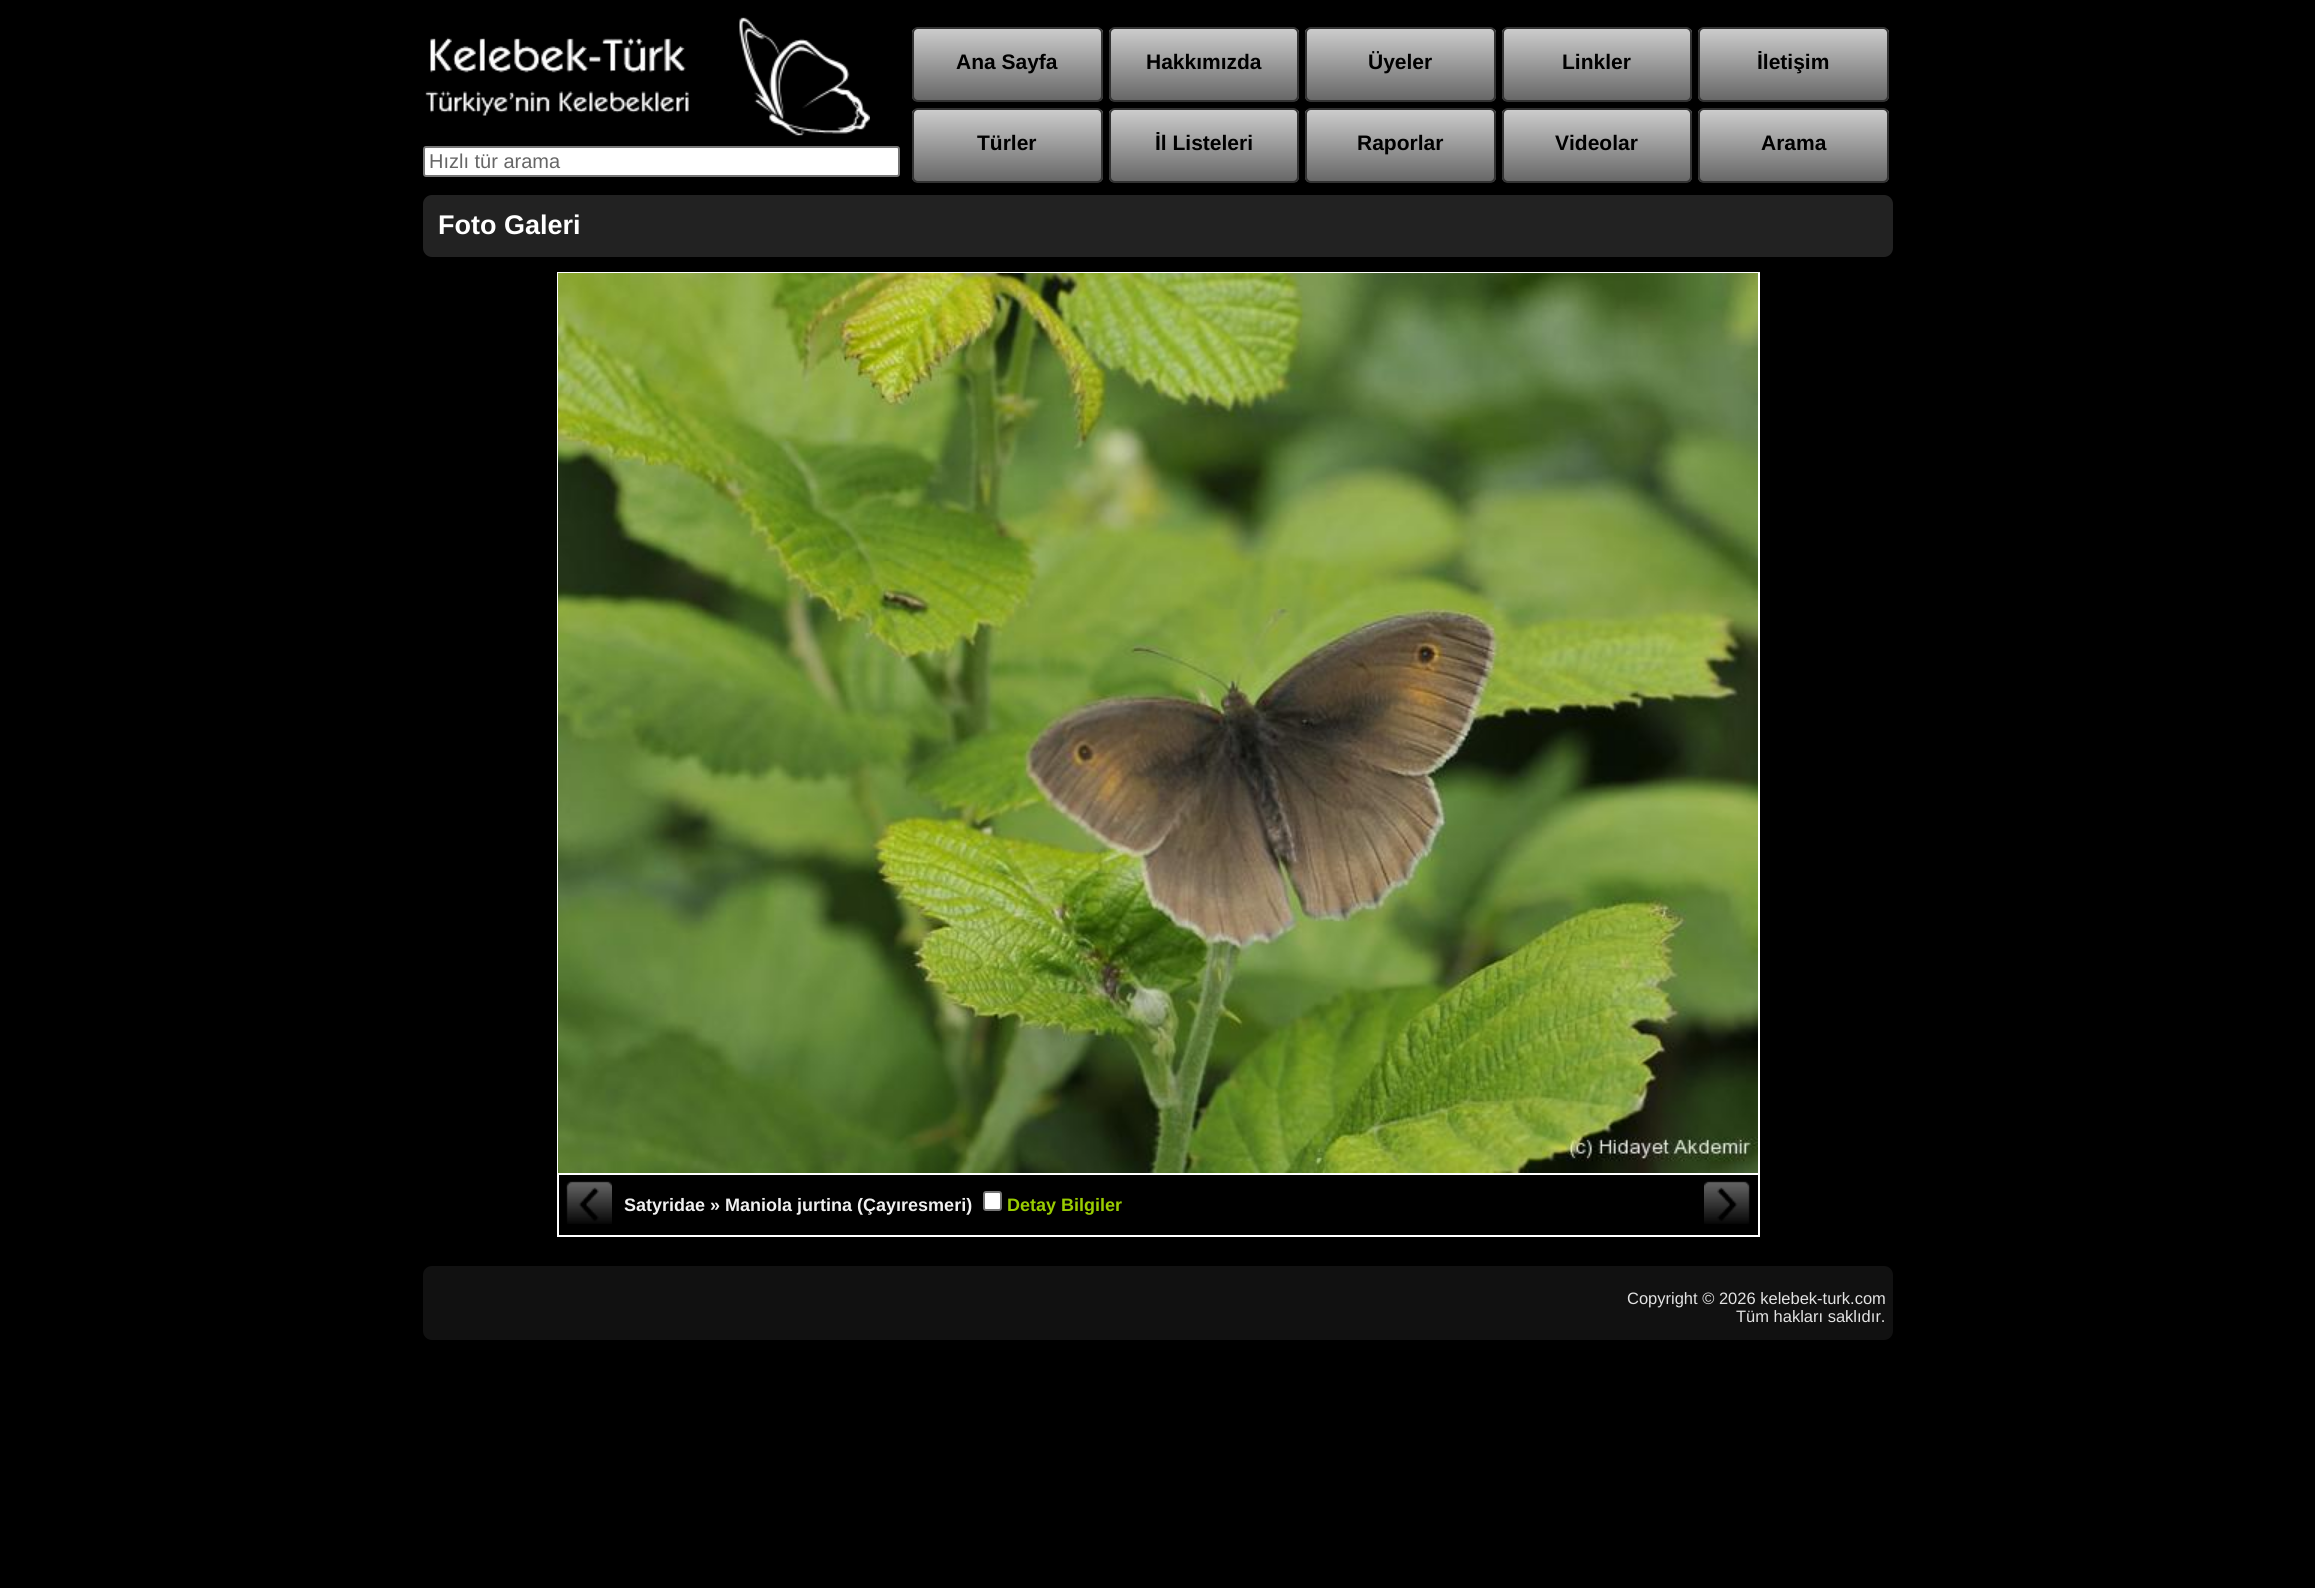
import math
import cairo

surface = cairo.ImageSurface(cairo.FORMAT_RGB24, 2315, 1588)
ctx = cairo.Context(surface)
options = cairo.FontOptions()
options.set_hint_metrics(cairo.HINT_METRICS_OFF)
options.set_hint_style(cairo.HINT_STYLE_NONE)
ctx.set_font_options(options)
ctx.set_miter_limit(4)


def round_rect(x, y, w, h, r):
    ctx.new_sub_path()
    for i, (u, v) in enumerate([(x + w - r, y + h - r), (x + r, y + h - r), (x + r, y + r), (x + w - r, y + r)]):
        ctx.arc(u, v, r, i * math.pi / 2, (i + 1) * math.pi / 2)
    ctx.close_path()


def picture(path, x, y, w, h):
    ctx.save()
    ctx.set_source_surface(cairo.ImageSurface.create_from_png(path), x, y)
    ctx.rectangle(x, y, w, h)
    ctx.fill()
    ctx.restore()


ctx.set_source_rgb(0, 0, 0)
ctx.paint()
picture("img1.png", 425, 37, 264, 79)
picture("img2.png", 739, 17, 131, 119)
ctx.save()
round_rect(912, 27, 191, 75, 6)
ctx.clip()
gradient = cairo.LinearGradient(914, 29, 914, 101)
gradient.add_color_stop_rgba(0, 0.8, 0.8, 0.8, 1)
gradient.add_color_stop_rgba(1, 0.4, 0.4, 0.4, 1)
ctx.set_source(gradient)
ctx.rectangle(912, 29, 191, 72)
ctx.fill()
ctx.restore()
round_rect(913, 28, 189, 73, 5)
ctx.set_source_rgb(0.2, 0.2, 0.2)
ctx.stroke()
ctx.select_font_face("Liberation Sans", cairo.FONT_SLANT_NORMAL, cairo.FONT_WEIGHT_BOLD)
ctx.set_font_size(21)
ctx.set_source_rgb(0, 0, 0)
ctx.move_to(956, 69)
ctx.show_text("Ana Sayfa")
ctx.save()
round_rect(1109, 27, 190, 75, 6)
ctx.clip()
gradient = cairo.LinearGradient(1110, 29, 1110, 101)
gradient.add_color_stop_rgba(0, 0.8, 0.8, 0.8, 1)
gradient.add_color_stop_rgba(1, 0.4, 0.4, 0.4, 1)
ctx.set_source(gradient)
ctx.rectangle(1109, 29, 190, 72)
ctx.fill()
ctx.restore()
round_rect(1110, 28, 188, 73, 5)
ctx.set_source_rgb(0.2, 0.2, 0.2)
ctx.stroke()
ctx.set_source_rgb(0, 0, 0)
ctx.move_to(1146, 69)
ctx.show_text("Hakkımızda")
ctx.save()
round_rect(1305, 27, 191, 75, 6)
ctx.clip()
gradient = cairo.LinearGradient(1307, 29, 1307, 101)
gradient.add_color_stop_rgba(0, 0.8, 0.8, 0.8, 1)
gradient.add_color_stop_rgba(1, 0.4, 0.4, 0.4, 1)
ctx.set_source(gradient)
ctx.rectangle(1305, 29, 191, 72)
ctx.fill()
ctx.restore()
round_rect(1306, 28, 189, 73, 5)
ctx.set_source_rgb(0.2, 0.2, 0.2)
ctx.stroke()
ctx.set_source_rgb(0, 0, 0)
ctx.move_to(1368, 69)
ctx.show_text("Üyeler")
ctx.save()
round_rect(1502, 27, 190, 75, 6)
ctx.clip()
gradient = cairo.LinearGradient(1503, 29, 1503, 101)
gradient.add_color_stop_rgba(0, 0.8, 0.8, 0.8, 1)
gradient.add_color_stop_rgba(1, 0.4, 0.4, 0.4, 1)
ctx.set_source(gradient)
ctx.rectangle(1502, 29, 190, 72)
ctx.fill()
ctx.restore()
round_rect(1503, 28, 188, 73, 5)
ctx.set_source_rgb(0.2, 0.2, 0.2)
ctx.stroke()
ctx.set_source_rgb(0, 0, 0)
ctx.move_to(1562, 69)
ctx.show_text("Linkler")
ctx.save()
round_rect(1698, 27, 191, 75, 6)
ctx.clip()
gradient = cairo.LinearGradient(1700, 29, 1700, 101)
gradient.add_color_stop_rgba(0, 0.8, 0.8, 0.8, 1)
gradient.add_color_stop_rgba(1, 0.4, 0.4, 0.4, 1)
ctx.set_source(gradient)
ctx.rectangle(1698, 29, 191, 72)
ctx.fill()
ctx.restore()
round_rect(1699, 28, 189, 73, 5)
ctx.set_source_rgb(0.2, 0.2, 0.2)
ctx.stroke()
ctx.set_source_rgb(0, 0, 0)
ctx.move_to(1757, 69)
ctx.show_text("İletişim")
ctx.save()
round_rect(912, 108, 191, 75, 6)
ctx.clip()
gradient = cairo.LinearGradient(914, 110, 914, 182)
gradient.add_color_stop_rgba(0, 0.8, 0.8, 0.8, 1)
gradient.add_color_stop_rgba(1, 0.4, 0.4, 0.4, 1)
ctx.set_source(gradient)
ctx.rectangle(912, 110, 191, 72)
ctx.fill()
ctx.restore()
round_rect(913, 109, 189, 73, 5)
ctx.set_source_rgb(0.2, 0.2, 0.2)
ctx.stroke()
ctx.set_source_rgb(0, 0, 0)
ctx.move_to(977, 150)
ctx.show_text("Türler")
ctx.save()
round_rect(1109, 108, 190, 75, 6)
ctx.clip()
gradient = cairo.LinearGradient(1110, 110, 1110, 182)
gradient.add_color_stop_rgba(0, 0.8, 0.8, 0.8, 1)
gradient.add_color_stop_rgba(1, 0.4, 0.4, 0.4, 1)
ctx.set_source(gradient)
ctx.rectangle(1109, 110, 190, 72)
ctx.fill()
ctx.restore()
round_rect(1110, 109, 188, 73, 5)
ctx.set_source_rgb(0.2, 0.2, 0.2)
ctx.stroke()
ctx.set_source_rgb(0, 0, 0)
ctx.move_to(1155, 150)
ctx.show_text("İl Listeleri")
ctx.save()
round_rect(1305, 108, 191, 75, 6)
ctx.clip()
gradient = cairo.LinearGradient(1307, 110, 1307, 182)
gradient.add_color_stop_rgba(0, 0.8, 0.8, 0.8, 1)
gradient.add_color_stop_rgba(1, 0.4, 0.4, 0.4, 1)
ctx.set_source(gradient)
ctx.rectangle(1305, 110, 191, 72)
ctx.fill()
ctx.restore()
round_rect(1306, 109, 189, 73, 5)
ctx.set_source_rgb(0.2, 0.2, 0.2)
ctx.stroke()
ctx.set_source_rgb(0, 0, 0)
ctx.move_to(1357, 150)
ctx.show_text("Raporlar")
ctx.save()
round_rect(1502, 108, 190, 75, 6)
ctx.clip()
gradient = cairo.LinearGradient(1503, 110, 1503, 182)
gradient.add_color_stop_rgba(0, 0.8, 0.8, 0.8, 1)
gradient.add_color_stop_rgba(1, 0.4, 0.4, 0.4, 1)
ctx.set_source(gradient)
ctx.rectangle(1502, 110, 190, 72)
ctx.fill()
ctx.restore()
round_rect(1503, 109, 188, 73, 5)
ctx.set_source_rgb(0.2, 0.2, 0.2)
ctx.stroke()
ctx.set_source_rgb(0, 0, 0)
ctx.move_to(1555, 150)
ctx.show_text("Videolar")
ctx.save()
round_rect(1698, 108, 191, 75, 6)
ctx.clip()
gradient = cairo.LinearGradient(1700, 110, 1700, 182)
gradient.add_color_stop_rgba(0, 0.8, 0.8, 0.8, 1)
gradient.add_color_stop_rgba(1, 0.4, 0.4, 0.4, 1)
ctx.set_source(gradient)
ctx.rectangle(1698, 110, 191, 72)
ctx.fill()
ctx.restore()
round_rect(1699, 109, 189, 73, 5)
ctx.set_source_rgb(0.2, 0.2, 0.2)
ctx.stroke()
ctx.set_source_rgb(0, 0, 0)
ctx.move_to(1761, 150)
ctx.show_text("Arama")
ctx.set_source_rgb(1, 1, 1)
round_rect(424, 147, 475, 29, 2)
ctx.fill_preserve()
ctx.set_source_rgb(0.463, 0.463, 0.463)
ctx.stroke()
ctx.select_font_face("Liberation Sans")
ctx.set_font_size(20)
ctx.set_source_rgb(0.4, 0.4, 0.4)
ctx.move_to(429, 168)
ctx.show_text("Hızlı tür arama")
ctx.set_source_rgb(0.133, 0.133, 0.133)
round_rect(423, 195, 1470, 62, 9)
ctx.fill()
ctx.select_font_face("Liberation Sans", cairo.FONT_SLANT_NORMAL, cairo.FONT_WEIGHT_BOLD)
ctx.set_font_size(27)
ctx.set_source_rgb(1, 1, 1)
ctx.move_to(438, 234)
ctx.show_text("Foto Galeri")
ctx.rectangle(558, 273, 1201, 901)
ctx.stroke()
picture("img3.png", 558, 273, 1200, 900)
ctx.rectangle(1758, 1175, 2, 61)
ctx.fill()
ctx.rectangle(557, 1235, 1203, 2)
ctx.fill()
ctx.rectangle(557, 1175, 2, 61)
ctx.fill()
picture("img4.png", 566, 1181, 46, 43)
ctx.set_font_size(18)
ctx.set_source_rgb(0.941, 0.941, 0.941)
ctx.move_to(624, 1211)
ctx.show_text("Satyridae » Maniola jurtina (Çayıresmeri)")
ctx.set_source_rgb(1, 1, 1)
round_rect(984, 1192, 17, 18, 2)
ctx.fill_preserve()
ctx.set_source_rgb(0.463, 0.463, 0.463)
ctx.stroke()
ctx.set_source_rgb(0.6, 0.8, 0)
ctx.move_to(1007, 1211)
ctx.show_text("Detay Bilgiler")
picture("img5.png", 1704, 1181, 46, 43)
ctx.set_source_rgb(0.067, 0.067, 0.067)
round_rect(423, 1266, 1470, 74, 9)
ctx.fill()
ctx.select_font_face("Liberation Sans")
ctx.set_font_size(16.5)
ctx.set_source_rgb(0.89, 0.89, 0.89)
ctx.move_to(1627, 1304)
ctx.show_text("Copyright © 2026 kelebek-turk.com")
ctx.move_to(1736, 1322)
ctx.show_text("Tüm hakları saklıdır.")
surface.write_to_png("page.png")
